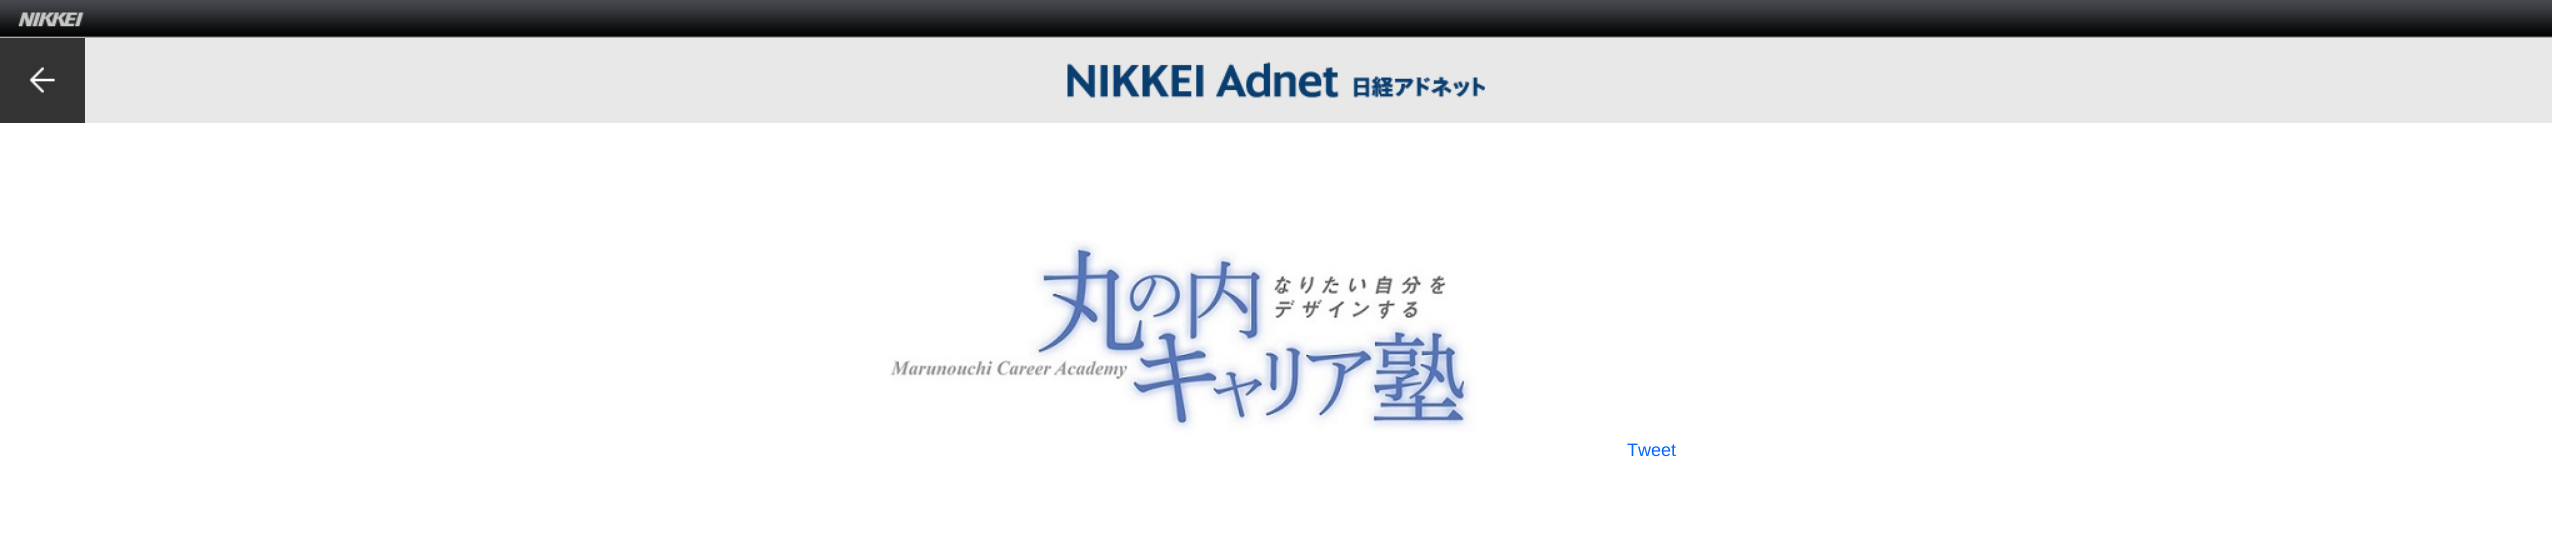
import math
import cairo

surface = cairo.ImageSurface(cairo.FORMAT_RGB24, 2552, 546)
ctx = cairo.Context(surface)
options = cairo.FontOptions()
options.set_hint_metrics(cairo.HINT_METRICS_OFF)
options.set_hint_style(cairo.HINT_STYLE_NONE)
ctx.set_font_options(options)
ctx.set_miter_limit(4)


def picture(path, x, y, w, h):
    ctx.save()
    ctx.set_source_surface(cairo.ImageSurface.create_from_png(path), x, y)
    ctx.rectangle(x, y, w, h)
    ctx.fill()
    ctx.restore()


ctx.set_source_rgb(1, 1, 1)
ctx.paint()
picture("img1.png", 0, 0, 2552, 38)
picture("img2.png", 18, 12, 66, 15)
ctx.set_source_rgb(0.91, 0.91, 0.91)
ctx.rectangle(85, 38, 2467, 85)
ctx.fill()
ctx.set_source_rgb(0.2, 0.2, 0.2)
ctx.rectangle(0, 38, 85, 85)
ctx.fill()
picture("img3.png", 30, 67, 25, 26)
picture("img4.png", 1067, 62, 418, 36)
picture("img5.png", 890, 238, 586, 197)
ctx.select_font_face("Liberation Sans")
ctx.set_font_size(18)
ctx.set_source_rgb(0, 0.4, 1)
ctx.move_to(1627, 456)
ctx.show_text("Tweet")
surface.write_to_png("page.png")
